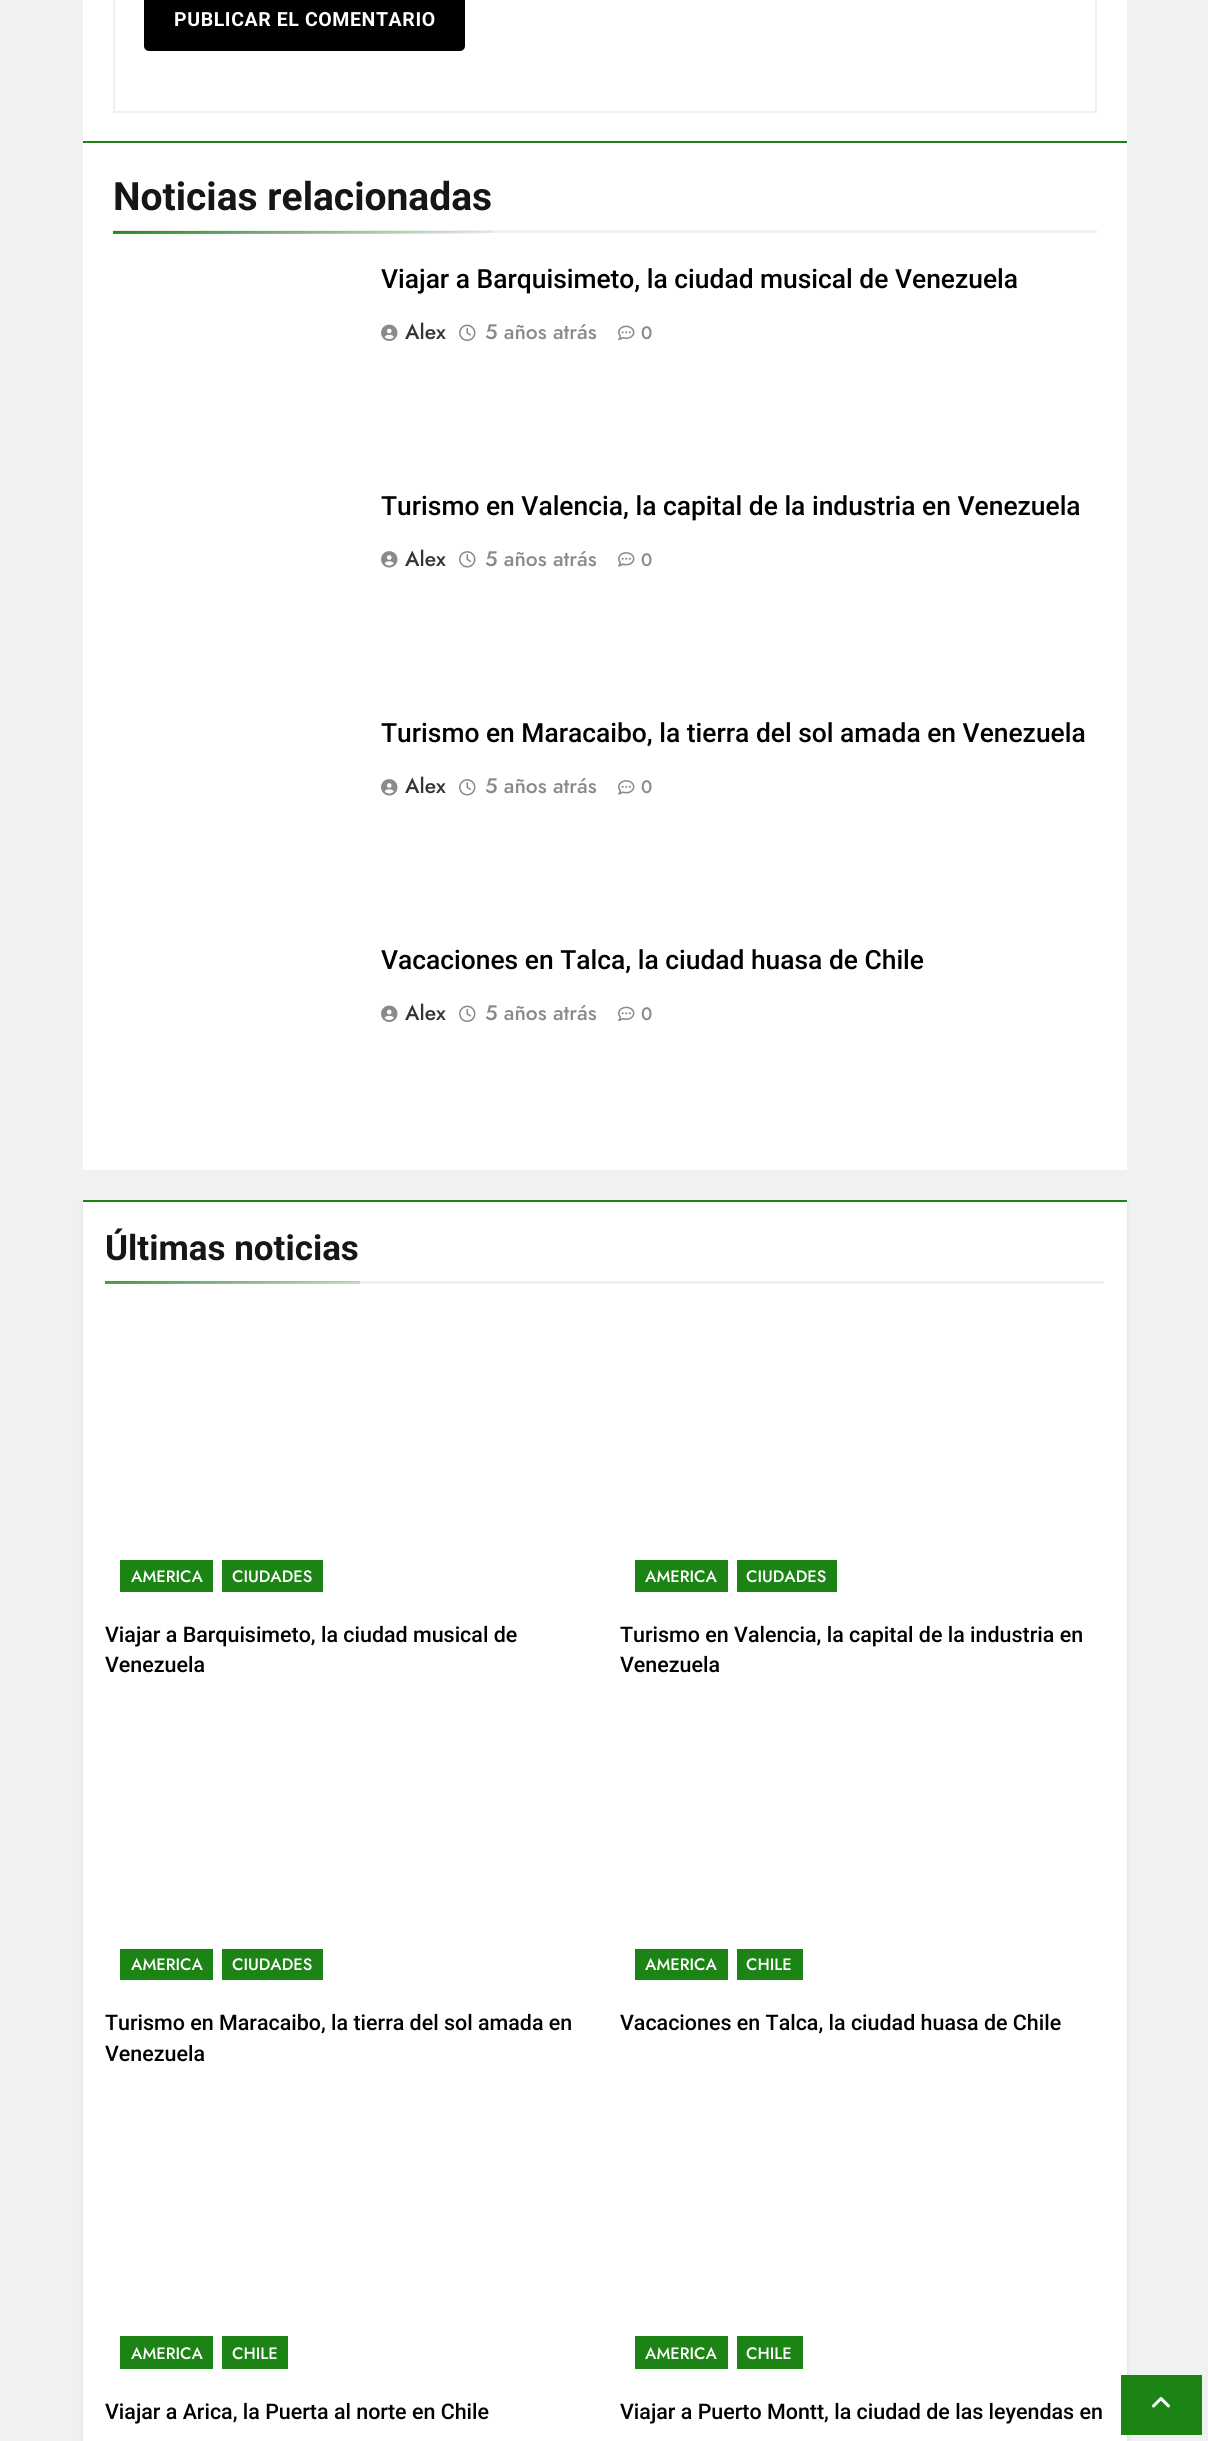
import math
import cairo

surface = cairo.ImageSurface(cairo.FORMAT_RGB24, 1208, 2441)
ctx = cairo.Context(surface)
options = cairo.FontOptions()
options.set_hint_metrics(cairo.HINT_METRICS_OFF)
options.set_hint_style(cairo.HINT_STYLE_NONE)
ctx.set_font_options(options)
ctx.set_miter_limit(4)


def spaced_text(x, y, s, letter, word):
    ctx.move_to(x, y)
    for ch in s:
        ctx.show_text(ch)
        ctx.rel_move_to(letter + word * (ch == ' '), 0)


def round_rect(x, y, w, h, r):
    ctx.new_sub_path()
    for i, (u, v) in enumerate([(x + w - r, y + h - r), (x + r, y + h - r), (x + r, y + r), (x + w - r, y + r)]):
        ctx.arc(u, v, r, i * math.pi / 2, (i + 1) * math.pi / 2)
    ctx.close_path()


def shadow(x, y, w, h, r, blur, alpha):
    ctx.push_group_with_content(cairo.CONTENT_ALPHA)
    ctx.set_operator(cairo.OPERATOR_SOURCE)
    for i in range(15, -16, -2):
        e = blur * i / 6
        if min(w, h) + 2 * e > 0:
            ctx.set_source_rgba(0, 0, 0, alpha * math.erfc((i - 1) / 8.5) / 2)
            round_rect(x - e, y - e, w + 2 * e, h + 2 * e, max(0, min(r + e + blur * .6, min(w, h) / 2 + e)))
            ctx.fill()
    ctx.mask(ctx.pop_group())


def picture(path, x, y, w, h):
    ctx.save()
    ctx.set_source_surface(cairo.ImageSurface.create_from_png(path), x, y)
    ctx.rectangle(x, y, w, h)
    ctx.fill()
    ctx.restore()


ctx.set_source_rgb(0.941, 0.945, 0.949)
ctx.paint()
ctx.set_source_rgb(1, 1, 1)
ctx.rectangle(83, 0, 1044, 141)
ctx.fill()
ctx.rectangle(114, -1, 982, 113)
ctx.set_source_rgb(0.941, 0.941, 0.941)
ctx.stroke()
ctx.set_source_rgb(0, 0, 0)
round_rect(144, -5, 321, 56, 5)
ctx.fill()
ctx.select_font_face("Roboto", cairo.FONT_SLANT_NORMAL, cairo.FONT_WEIGHT_BOLD)
ctx.set_font_size(19.5)
ctx.set_source_rgb(1, 1, 1)
spaced_text(174, 26, "PUBLICAR EL COMENTARIO", 0.6, 0)
ctx.rectangle(83, 143, 1044, 1027)
ctx.fill()
ctx.set_source_rgb(0.106, 0.518, 0.082)
ctx.rectangle(83, 141, 1044, 2)
ctx.fill()
ctx.set_source_rgb(0.941, 0.941, 0.941)
ctx.rectangle(113, 230, 984, 3)
ctx.fill()
ctx.set_font_size(39)
ctx.set_source_rgb(0.086, 0.086, 0.086)
ctx.move_to(113, 210)
ctx.show_text("Noticias relacionadas")
gradient = cairo.LinearGradient(301, 218, 303, 247)
gradient.add_color_stop_rgba(0, 0.106, 0.518, 0.082, 1)
gradient.add_color_stop_rgba(1, 0.106, 0.518, 0.082, 0)
ctx.set_source(gradient)
ctx.rectangle(113, 231, 379, 3)
ctx.fill()
ctx.select_font_face("Roboto Medium")
ctx.set_font_size(26.4)
ctx.set_source_rgb(0, 0, 0)
ctx.move_to(381, 288)
ctx.show_text("Viajar a Barquisimeto, la ciudad musical de Venezuela")
picture("img1.png", 381, 324, 17, 17)
ctx.select_font_face("Jost Medium")
ctx.set_font_size(21)
ctx.set_source_rgb(0.2, 0.2, 0.2)
ctx.move_to(405, 339)
ctx.show_text("Alex")
picture("img2.png", 459, 324, 17, 17)
ctx.set_source_rgb(0.541, 0.541, 0.549)
ctx.move_to(485, 339)
ctx.show_text("5 años atrás")
picture("img3.png", 618, 325, 17, 15)
ctx.set_font_size(18)
ctx.move_to(641, 339)
ctx.show_text("0")
ctx.select_font_face("Roboto Medium")
ctx.set_font_size(26.4)
ctx.set_source_rgb(0, 0, 0)
ctx.move_to(381, 515)
ctx.show_text("Turismo en Valencia, la capital de la industria en Venezuela")
picture("img4.png", 381, 551, 17, 17)
ctx.select_font_face("Jost Medium")
ctx.set_font_size(21)
ctx.set_source_rgb(0.2, 0.2, 0.2)
ctx.move_to(405, 566)
ctx.show_text("Alex")
picture("img5.png", 459, 551, 17, 17)
ctx.set_source_rgb(0.541, 0.541, 0.549)
ctx.move_to(485, 566)
ctx.show_text("5 años atrás")
picture("img6.png", 618, 552, 17, 15)
ctx.set_font_size(18)
ctx.move_to(641, 566)
ctx.show_text("0")
ctx.select_font_face("Roboto Medium")
ctx.set_font_size(26.4)
ctx.set_source_rgb(0, 0, 0)
ctx.move_to(381, 742)
ctx.show_text("Turismo en Maracaibo, la tierra del sol amada en Venezuela")
picture("img4.png", 381, 779, 17, 17)
ctx.select_font_face("Jost Medium")
ctx.set_font_size(21)
ctx.set_source_rgb(0.2, 0.2, 0.2)
ctx.move_to(405, 793)
ctx.show_text("Alex")
picture("img5.png", 459, 779, 17, 17)
ctx.set_source_rgb(0.541, 0.541, 0.549)
ctx.move_to(485, 793)
ctx.show_text("5 años atrás")
picture("img6.png", 618, 780, 17, 15)
ctx.set_font_size(18)
ctx.move_to(641, 793)
ctx.show_text("0")
ctx.select_font_face("Roboto Medium")
ctx.set_font_size(26.4)
ctx.set_source_rgb(0, 0, 0)
ctx.move_to(381, 969)
ctx.show_text("Vacaciones en Talca, la ciudad huasa de Chile")
picture("img1.png", 381, 1005, 17, 17)
ctx.select_font_face("Jost Medium")
ctx.set_font_size(21)
ctx.set_source_rgb(0.2, 0.2, 0.2)
ctx.move_to(405, 1020)
ctx.show_text("Alex")
picture("img2.png", 459, 1005, 17, 17)
ctx.set_source_rgb(0.541, 0.541, 0.549)
ctx.move_to(485, 1020)
ctx.show_text("5 años atrás")
picture("img3.png", 618, 1006, 17, 15)
ctx.set_font_size(18)
ctx.move_to(641, 1020)
ctx.show_text("0")
ctx.set_source_rgb(0, 0, 0)
shadow(83, 1205, 1044, 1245, 0, 3, 0.08)
ctx.set_source_rgb(1, 1, 1)
ctx.rectangle(83, 1202, 1044, 1239)
ctx.fill()
ctx.set_source_rgb(0.106, 0.518, 0.082)
ctx.rectangle(83, 1200, 1044, 2)
ctx.fill()
ctx.set_source_rgb(0.941, 0.941, 0.941)
ctx.rectangle(360, 1281, 744, 3)
ctx.fill()
ctx.select_font_face("Roboto", cairo.FONT_SLANT_NORMAL, cairo.FONT_WEIGHT_BOLD)
ctx.set_font_size(35)
ctx.set_source_rgb(0.086, 0.086, 0.086)
ctx.move_to(105, 1260)
ctx.show_text("Últimas noticias")
gradient = cairo.LinearGradient(232, 1272, 233, 1293)
gradient.add_color_stop_rgba(0, 0.106, 0.518, 0.082, 1)
gradient.add_color_stop_rgba(1, 0.941, 0.941, 0.941, 1)
ctx.set_source(gradient)
ctx.rectangle(105, 1281, 255, 3)
ctx.fill()
ctx.set_source_rgb(0.106, 0.518, 0.082)
ctx.rectangle(120, 1560, 93, 32)
ctx.fill()
ctx.select_font_face("Jost Medium")
ctx.set_font_size(16.5)
ctx.set_source_rgb(1, 1, 1)
ctx.move_to(131, 1582)
ctx.show_text("AMERICA")
ctx.set_source_rgb(0.106, 0.518, 0.082)
ctx.rectangle(222, 1560, 101, 32)
ctx.fill()
ctx.set_source_rgb(1, 1, 1)
ctx.move_to(232, 1582)
ctx.show_text("CIUDADES")
ctx.select_font_face("Roboto Medium")
ctx.set_font_size(21.45)
ctx.set_source_rgb(0, 0, 0)
ctx.move_to(105, 1642)
ctx.show_text("Viajar a Barquisimeto, la ciudad musical de")
ctx.move_to(105, 1672)
ctx.show_text("Venezuela")
ctx.set_source_rgb(0.106, 0.518, 0.082)
ctx.rectangle(635, 1560, 93, 32)
ctx.fill()
ctx.select_font_face("Jost Medium")
ctx.set_font_size(16.5)
ctx.set_source_rgb(1, 1, 1)
ctx.move_to(645, 1582)
ctx.show_text("AMERICA")
ctx.set_source_rgb(0.106, 0.518, 0.082)
ctx.rectangle(737, 1560, 100, 32)
ctx.fill()
ctx.set_source_rgb(1, 1, 1)
ctx.move_to(746, 1582)
ctx.show_text("CIUDADES")
ctx.select_font_face("Roboto Medium")
ctx.set_font_size(21.45)
ctx.set_source_rgb(0, 0, 0)
ctx.move_to(620, 1642)
ctx.show_text("Turismo en Valencia, la capital de la industria en")
ctx.move_to(620, 1672)
ctx.show_text("Venezuela")
ctx.set_source_rgb(0.106, 0.518, 0.082)
ctx.rectangle(120, 1949, 93, 31)
ctx.fill()
ctx.select_font_face("Jost Medium")
ctx.set_font_size(16.5)
ctx.set_source_rgb(1, 1, 1)
ctx.move_to(131, 1970)
ctx.show_text("AMERICA")
ctx.set_source_rgb(0.106, 0.518, 0.082)
ctx.rectangle(222, 1949, 101, 31)
ctx.fill()
ctx.set_source_rgb(1, 1, 1)
ctx.move_to(232, 1970)
ctx.show_text("CIUDADES")
ctx.select_font_face("Roboto Medium")
ctx.set_font_size(21.45)
ctx.set_source_rgb(0, 0, 0)
ctx.move_to(105, 2030)
ctx.show_text("Turismo en Maracaibo, la tierra del sol amada en")
ctx.move_to(105, 2061)
ctx.show_text("Venezuela")
ctx.set_source_rgb(0.106, 0.518, 0.082)
ctx.rectangle(635, 1949, 93, 31)
ctx.fill()
ctx.select_font_face("Jost Medium")
ctx.set_font_size(16.5)
ctx.set_source_rgb(1, 1, 1)
ctx.move_to(645, 1970)
ctx.show_text("AMERICA")
ctx.set_source_rgb(0.106, 0.518, 0.082)
ctx.rectangle(737, 1949, 66, 31)
ctx.fill()
ctx.set_source_rgb(1, 1, 1)
ctx.move_to(746, 1970)
ctx.show_text("CHILE")
ctx.select_font_face("Roboto Medium")
ctx.set_font_size(21.45)
ctx.set_source_rgb(0, 0, 0)
ctx.move_to(620, 2030)
ctx.show_text("Vacaciones en Talca, la ciudad huasa de Chile")
ctx.set_source_rgb(0.106, 0.518, 0.082)
ctx.rectangle(120, 2336, 93, 33)
ctx.fill()
ctx.select_font_face("Jost Medium")
ctx.set_font_size(16.5)
ctx.set_source_rgb(1, 1, 1)
ctx.move_to(131, 2359)
ctx.show_text("AMERICA")
ctx.set_source_rgb(0.106, 0.518, 0.082)
ctx.rectangle(222, 2336, 66, 33)
ctx.fill()
ctx.set_source_rgb(1, 1, 1)
ctx.move_to(232, 2359)
ctx.show_text("CHILE")
ctx.select_font_face("Roboto Medium")
ctx.set_font_size(21.45)
ctx.set_source_rgb(0, 0, 0)
ctx.move_to(105, 2419)
ctx.show_text("Viajar a Arica, la Puerta al norte en Chile")
ctx.set_source_rgb(0.106, 0.518, 0.082)
ctx.rectangle(635, 2336, 93, 33)
ctx.fill()
ctx.select_font_face("Jost Medium")
ctx.set_font_size(16.5)
ctx.set_source_rgb(1, 1, 1)
ctx.move_to(645, 2359)
ctx.show_text("AMERICA")
ctx.set_source_rgb(0.106, 0.518, 0.082)
ctx.rectangle(737, 2336, 66, 33)
ctx.fill()
ctx.set_source_rgb(1, 1, 1)
ctx.move_to(746, 2359)
ctx.show_text("CHILE")
ctx.select_font_face("Roboto Medium")
ctx.set_font_size(21.45)
ctx.set_source_rgb(0, 0, 0)
ctx.move_to(620, 2419)
ctx.show_text("Viajar a Puerto Montt, la ciudad de las leyendas en")
ctx.set_source_rgb(0.106, 0.518, 0.082)
ctx.rectangle(1121, 2375, 81, 60)
ctx.fill()
picture("img7.png", 1152, 2397, 18, 11)
surface.write_to_png("page.png")
